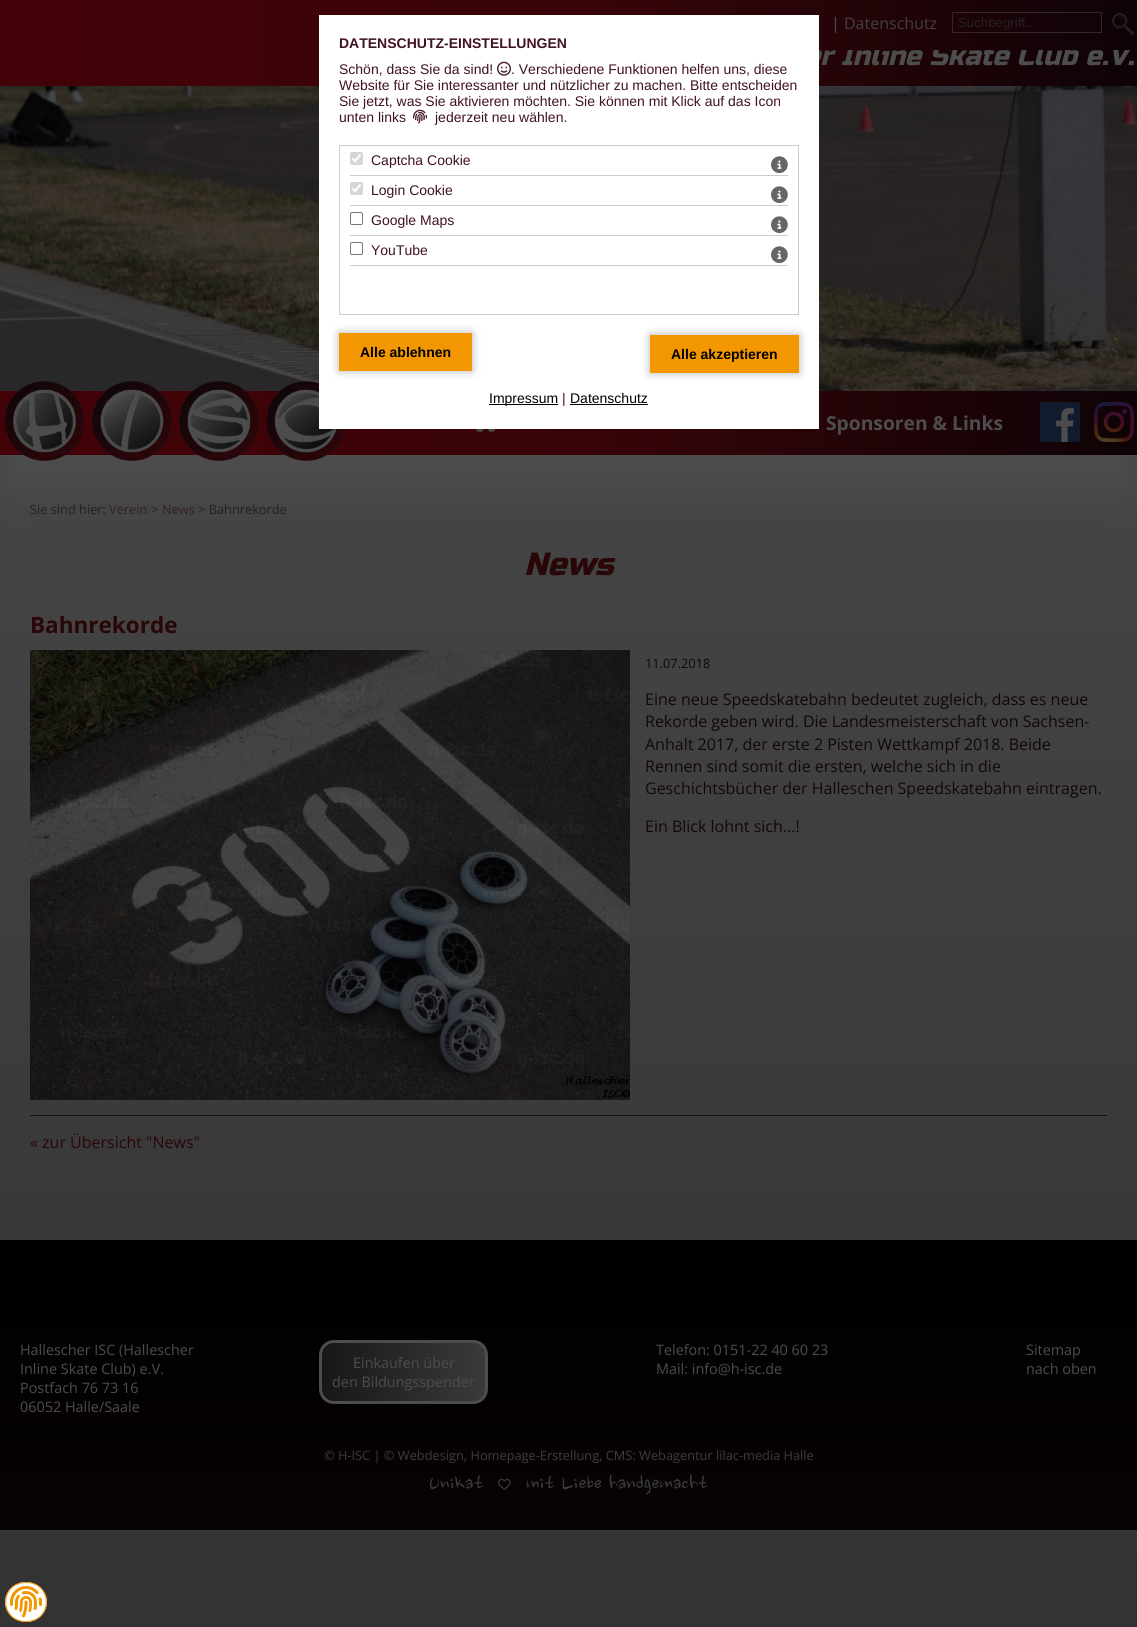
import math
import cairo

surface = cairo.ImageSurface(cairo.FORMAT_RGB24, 1137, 1627)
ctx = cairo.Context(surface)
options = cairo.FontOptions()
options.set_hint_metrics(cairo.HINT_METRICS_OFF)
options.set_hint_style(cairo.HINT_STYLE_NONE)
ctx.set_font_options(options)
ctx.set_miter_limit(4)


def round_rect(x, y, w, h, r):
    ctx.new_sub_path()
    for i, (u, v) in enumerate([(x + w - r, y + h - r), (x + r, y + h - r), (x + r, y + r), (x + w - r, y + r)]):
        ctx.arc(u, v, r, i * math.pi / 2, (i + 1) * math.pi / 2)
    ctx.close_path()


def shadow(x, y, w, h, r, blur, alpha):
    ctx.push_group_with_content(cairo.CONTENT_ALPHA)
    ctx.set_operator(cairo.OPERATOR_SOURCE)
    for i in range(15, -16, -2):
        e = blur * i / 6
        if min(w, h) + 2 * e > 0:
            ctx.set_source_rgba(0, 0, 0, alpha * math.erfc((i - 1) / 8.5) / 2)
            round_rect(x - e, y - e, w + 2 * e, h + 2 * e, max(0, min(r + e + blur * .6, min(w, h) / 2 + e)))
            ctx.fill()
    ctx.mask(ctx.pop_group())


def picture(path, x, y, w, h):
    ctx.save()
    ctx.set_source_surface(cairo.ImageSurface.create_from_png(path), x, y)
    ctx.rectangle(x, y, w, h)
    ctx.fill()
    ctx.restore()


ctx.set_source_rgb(1, 1, 1)
ctx.paint()
gradient = cairo.LinearGradient(568, -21, 569, 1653)
gradient.add_color_stop_rgba(0, 0.302, 0.302, 0.302, 1)
gradient.add_color_stop_rgba(1, 0.196, 0.196, 0.196, 1)
ctx.set_source(gradient)
ctx.rectangle(0, 456, 1137, 1171)
ctx.fill()
gradient = cairo.LinearGradient(0, 56, 1137, 56)
gradient.add_color_stop_rgba(0, 0.263, 0.008, 0.031, 1)
gradient.add_color_stop_rgba(0.5, 0.224, 0.016, 0.035, 1)
gradient.add_color_stop_rgba(1, 0.055, 0.012, 0.024, 1)
ctx.set_source(gradient)
ctx.rectangle(0, 50, 1137, 36)
ctx.fill()
ctx.select_font_face("Russo One", cairo.FONT_SLANT_ITALIC)
ctx.set_font_size(27.25)
ctx.set_source_rgb(0.302, 0.302, 0.302)
ctx.move_to(804, 65)
ctx.show_text("er Inline Skate Club e.V.")
gradient = cairo.LinearGradient(0, 25, 1137, 25)
gradient.add_color_stop_rgba(0, 0.263, 0.008, 0.031, 1)
gradient.add_color_stop_rgba(0.5, 0.224, 0.016, 0.035, 1)
gradient.add_color_stop_rgba(1, 0.055, 0.012, 0.024, 1)
ctx.set_source(gradient)
ctx.rectangle(0, 0, 1137, 50)
ctx.fill()
ctx.select_font_face("Open Sans")
ctx.set_font_size(16)
ctx.set_source_rgb(0.302, 0.302, 0.302)
ctx.move_to(831, 29)
ctx.show_text("|")
ctx.set_source_rgb(0.267, 0.243, 0.247)
ctx.move_to(844, 29)
ctx.show_text("Datenschutz")
ctx.rectangle(952.5, 12.5, 149, 20)
ctx.set_source_rgba(0.302, 0.302, 0.302, 0.5)
ctx.set_line_width(1)
ctx.stroke()
ctx.select_font_face("Liberation Sans")
ctx.set_font_size(13.25)
ctx.set_source_rgb(0.153, 0.122, 0.129)
ctx.move_to(958, 27)
ctx.show_text("Suchbegriff...")
picture("img1.png", 1112, 13, 22, 22)
picture("img6.png", 0, 86, 1137, 305)
ctx.set_source_rgb(0.247, 0.247, 0.247)
ctx.rectangle(30, 524, 1077, 1)
ctx.fill()
ctx.set_source_rgb(0.302, 0.302, 0.302)
shadow(6, 434, 1125, 53, 0, 18, 1)
gradient = cairo.LinearGradient(0, 423, 1137, 423)
gradient.add_color_stop_rgba(0, 0.263, 0.008, 0.031, 1)
gradient.add_color_stop_rgba(0.5, 0.224, 0.016, 0.035, 1)
gradient.add_color_stop_rgba(1, 0.055, 0.012, 0.024, 1)
ctx.set_source(gradient)
ctx.rectangle(0, 391, 1137, 64)
ctx.fill()
ctx.set_source_rgb(0.302, 0.302, 0.302)
ctx.rectangle(0, 455, 1137, 1)
ctx.fill()
picture("img5.png", 5, 381, 341, 80)
ctx.set_source_rgb(1, 1, 1)
ctx.rectangle(319, 15, 500, 414)
ctx.fill()
ctx.select_font_face("Liberation Sans", cairo.FONT_SLANT_NORMAL, cairo.FONT_WEIGHT_BOLD)
ctx.set_font_size(14)
ctx.set_source_rgb(0.255, 0.075, 0.122)
ctx.move_to(339, 48)
ctx.show_text("DATENSCHUTZ-EINSTELLUNGEN")
ctx.select_font_face("Liberation Sans")
ctx.move_to(339, 74)
ctx.show_text("Schön, dass Sie da sind!")
picture("img2.png", 497, 61, 14, 15)
ctx.move_to(511, 74)
ctx.show_text(". Verschiedene Funktionen helfen uns, diese")
ctx.move_to(339, 90)
ctx.show_text("Website für Sie interessanter und nützlicher zu machen. Bitte entscheiden")
ctx.move_to(339, 106)
ctx.show_text("Sie jetzt, was Sie aktivieren möchten. Sie können mit Klick auf das Icon")
ctx.move_to(339, 122)
ctx.show_text("unten links")
picture("img3.png", 413, 109, 14, 15)
ctx.move_to(435, 122)
ctx.show_text("jederzeit neu wählen.")
ctx.rectangle(339.5, 145.5, 459, 169)
ctx.set_source_rgb(0.8, 0.8, 0.8)
ctx.stroke()
ctx.rectangle(350, 175, 438, 1)
ctx.fill()
ctx.set_source_rgb(0.839, 0.839, 0.839)
round_rect(350, 152, 13, 13, 2)
ctx.fill()
ctx.new_path()
ctx.move_to(352.5, 158.5)
ctx.line_to(355, 161)
ctx.line_to(360.5, 154.5)
ctx.set_source_rgb(1, 1, 1)
ctx.set_line_width(2.1)
ctx.stroke()
ctx.set_source_rgb(0.255, 0.075, 0.122)
ctx.move_to(371, 165)
ctx.show_text("Captcha Cookie")
picture("img4.png", 771, 156, 17, 18)
ctx.set_source_rgb(0.8, 0.8, 0.8)
ctx.rectangle(350, 205, 438, 1)
ctx.fill()
ctx.set_source_rgb(0.839, 0.839, 0.839)
round_rect(350, 182, 13, 13, 2)
ctx.fill()
ctx.new_path()
ctx.move_to(352.5, 188.5)
ctx.line_to(355, 191)
ctx.line_to(360.5, 184.5)
ctx.set_source_rgb(1, 1, 1)
ctx.stroke()
ctx.set_source_rgb(0.255, 0.075, 0.122)
ctx.move_to(371, 195)
ctx.show_text("Login Cookie")
picture("img4.png", 771, 186, 17, 18)
ctx.set_source_rgb(0.8, 0.8, 0.8)
ctx.rectangle(350, 235, 438, 1)
ctx.fill()
round_rect(350.5, 212.5, 12, 12, 1.5)
ctx.set_source_rgb(0.463, 0.463, 0.463)
ctx.set_line_width(1)
ctx.stroke()
ctx.set_source_rgb(0.255, 0.075, 0.122)
ctx.move_to(371, 225)
ctx.show_text("Google Maps")
picture("img4.png", 771, 216, 17, 18)
ctx.set_source_rgb(0.8, 0.8, 0.8)
ctx.rectangle(350, 265, 438, 1)
ctx.fill()
round_rect(350.5, 242.5, 12, 12, 1.5)
ctx.set_source_rgb(0.463, 0.463, 0.463)
ctx.stroke()
ctx.set_source_rgb(0.255, 0.075, 0.122)
ctx.move_to(371, 255)
ctx.show_text("YouTube")
picture("img4.png", 771, 246, 17, 18)
ctx.set_source_rgb(0, 0, 0)
shadow(650, 335, 149, 38, 0, 4.5, 0.3)
ctx.set_source_rgb(0.953, 0.592, 0)
ctx.rectangle(650, 335, 149, 38)
ctx.fill()
ctx.select_font_face("Liberation Sans", cairo.FONT_SLANT_NORMAL, cairo.FONT_WEIGHT_BOLD)
ctx.set_source_rgb(0, 0, 0)
ctx.move_to(671, 359)
ctx.show_text("Alle akzeptieren")
ctx.set_source_rgb(0, 0, 0)
shadow(339, 333, 133, 38, 0, 4.5, 0.3)
ctx.set_source_rgb(0.953, 0.592, 0)
ctx.rectangle(339, 333, 133, 38)
ctx.fill()
ctx.set_source_rgb(0, 0, 0)
ctx.move_to(360, 357)
ctx.show_text("Alle ablehnen")
ctx.rectangle(489, 404, 69, 1)
ctx.fill()
ctx.select_font_face("Liberation Sans")
ctx.move_to(489, 403)
ctx.show_text("Impressum")
ctx.set_source_rgb(0.255, 0.075, 0.122)
ctx.move_to(562, 403)
ctx.show_text("|")
ctx.set_source_rgb(0, 0, 0)
ctx.move_to(570, 403)
ctx.show_text("Datenschutz")
ctx.rectangle(570, 404, 78, 1)
ctx.fill()
picture("img7.png", 476, 429, 19, 3)
ctx.select_font_face("Open Sans", cairo.FONT_SLANT_NORMAL, cairo.FONT_WEIGHT_BOLD)
ctx.set_font_size(19.25)
ctx.set_source_rgb(0.302, 0.302, 0.302)
ctx.move_to(826, 430)
ctx.show_text("Sponsoren & Links")
picture("img8.png", 1040, 402, 40, 40)
picture("img9.png", 1094, 402, 40, 40)
ctx.select_font_face("Open Sans")
ctx.set_font_size(12.8)
ctx.set_source_rgb(0.153, 0.122, 0.129)
ctx.move_to(30, 514)
ctx.show_text("Sie sind hier:")
ctx.set_source_rgb(0.204, 0.122, 0.129)
ctx.move_to(109, 514)
ctx.show_text("Verein")
ctx.set_source_rgb(0.153, 0.122, 0.129)
ctx.move_to(151, 514)
ctx.show_text(">")
ctx.set_source_rgb(0.204, 0.122, 0.129)
ctx.move_to(162, 514)
ctx.show_text("News")
ctx.set_source_rgb(0.153, 0.122, 0.129)
ctx.move_to(198, 514)
ctx.show_text("> Bahnrekorde")
ctx.select_font_face("Russo One", cairo.FONT_SLANT_ITALIC)
ctx.set_font_size(32)
ctx.set_source_rgb(0.161, 0.024, 0.035)
ctx.move_to(524, 575)
ctx.show_text("News")
ctx.select_font_face("Open Sans", cairo.FONT_SLANT_NORMAL, cairo.FONT_WEIGHT_BOLD)
ctx.set_font_size(22.5)
ctx.move_to(30, 633)
ctx.show_text("Bahnrekorde")
picture("img10.png", 30, 650, 600, 450)
ctx.select_font_face("Open Sans")
ctx.set_font_size(12.8)
ctx.set_source_rgb(0.078, 0.024, 0.035)
ctx.move_to(645, 668)
ctx.show_text("11.07.2018")
ctx.set_font_size(16)
ctx.move_to(645, 705)
ctx.show_text("Eine neue Speedskatebahn bedeutet zugleich, dass es neue")
ctx.move_to(645, 727)
ctx.show_text("Rekorde geben wird. Die Landesmeisterschaft von Sachsen-")
ctx.move_to(645, 750)
ctx.show_text("Anhalt 2017, der erste 2 Pisten Wettkampf 2018. Beide")
ctx.move_to(645, 772)
ctx.show_text("Rennen sind somit die ersten, welche sich in die")
ctx.move_to(645, 794)
ctx.show_text("Geschichtsbücher der Halleschen Speedskatebahn eintragen.")
ctx.move_to(645, 832)
ctx.show_text("Ein Blick lohnt sich...!")
ctx.set_source_rgb(0.078, 0.078, 0.078)
ctx.rectangle(30, 1115, 1077, 1)
ctx.fill()
ctx.set_source_rgb(0.161, 0.024, 0.035)
ctx.move_to(30, 1148)
ctx.show_text("« zur Übersicht \"News\"")
gradient = cairo.LinearGradient(569, 1240, 569, 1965)
gradient.add_color_stop_rgba(0, 0, 0, 0, 1)
gradient.add_color_stop_rgba(1, 0.078, 0.024, 0.035, 1)
ctx.set_source(gradient)
ctx.rectangle(0, 1240, 1137, 290)
ctx.fill()
ctx.set_font_size(14.4)
ctx.set_source_rgb(0.302, 0.302, 0.302)
ctx.move_to(20, 1355)
ctx.show_text("Hallescher ISC (Hallescher")
ctx.move_to(20, 1374)
ctx.show_text("Inline Skate Club) e.V.")
ctx.move_to(20, 1393)
ctx.show_text("Postfach 76 73 16")
ctx.move_to(20, 1412)
ctx.show_text("06052 Halle/Saale")
ctx.save()
round_rect(319, 1340, 169, 64, 15)
ctx.clip()
gradient = cairo.LinearGradient(322, 1372, 485, 1372)
gradient.add_color_stop_rgba(0, 0.09, 0.09, 0.09, 1)
gradient.add_color_stop_rgba(1, 0.227, 0.227, 0.227, 1)
ctx.set_source(gradient)
ctx.rectangle(322, 1340, 163, 64)
ctx.fill()
ctx.restore()
round_rect(320.5, 1341.5, 166, 61, 13.5)
ctx.set_line_width(3)
ctx.stroke()
ctx.move_to(353, 1368)
ctx.show_text("Einkaufen über")
ctx.move_to(332, 1387)
ctx.show_text("den Bildungsspender")
ctx.move_to(656, 1355)
ctx.show_text("Telefon: 0151-22 40 60 23")
ctx.move_to(656, 1374)
ctx.show_text("Mail: info@h-isc.de")
ctx.move_to(1026, 1355)
ctx.show_text("Sitemap")
ctx.move_to(1026, 1374)
ctx.show_text("nach oben")
ctx.set_font_size(12.8)
ctx.set_source_rgb(0.235, 0.235, 0.235)
ctx.move_to(324, 1460)
ctx.show_text("© H-ISC | © Webdesign, Homepage-Erstellung, CMS: Webagentur lilac-media Halle")
ctx.select_font_face("Nanum Brush Script")
ctx.set_font_size(24.25)
ctx.move_to(429, 1488)
ctx.show_text("Unikat")
picture("img11.png", 498, 1478, 13, 12)
ctx.move_to(526, 1488)
ctx.show_text("mit Liebe handgemacht")
ctx.set_source_rgb(1, 1, 1)
ctx.new_path()
ctx.move_to(26, 1582)
ctx.curve_to(37.5, 1582, 47, 1591, 47, 1602)
ctx.curve_to(47, 1613, 37.5, 1622, 26, 1622)
ctx.curve_to(14.5, 1622, 5, 1613, 5, 1602)
ctx.curve_to(5, 1591, 14.5, 1582, 26, 1582)
ctx.close_path()
ctx.fill()
ctx.new_path()
ctx.move_to(26, 1582.5)
ctx.curve_to(53, 1582.5, 53, 1621.5, 26, 1621.5)
ctx.curve_to(-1, 1621.5, -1, 1582.5, 26, 1582.5)
ctx.close_path()
ctx.set_source_rgb(0.953, 0.592, 0)
ctx.set_line_width(1)
ctx.stroke()
picture("img12.png", 10, 1586, 32, 32)
surface.write_to_png("page.png")
